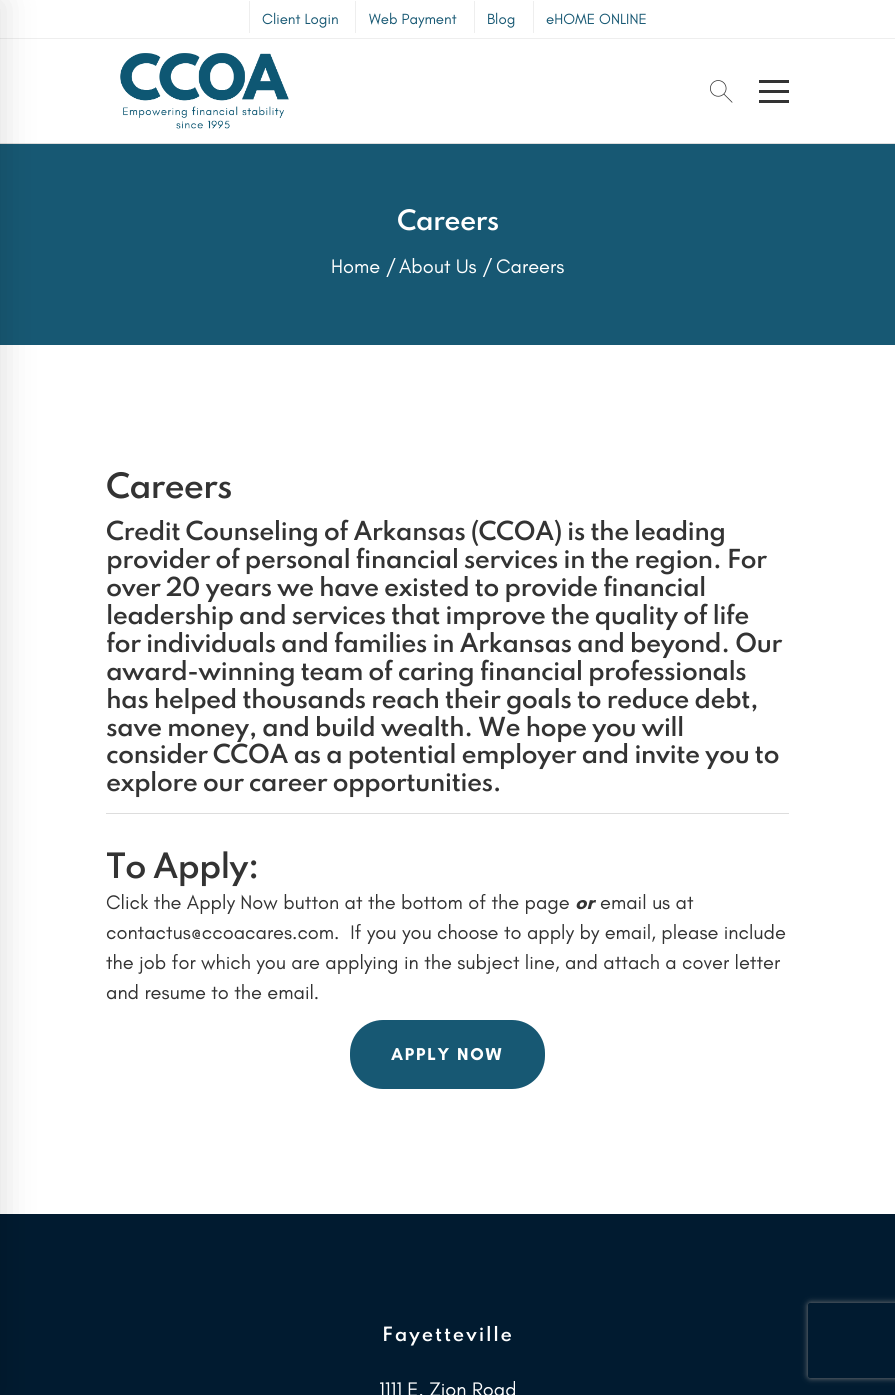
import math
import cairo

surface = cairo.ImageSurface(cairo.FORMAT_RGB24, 895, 1395)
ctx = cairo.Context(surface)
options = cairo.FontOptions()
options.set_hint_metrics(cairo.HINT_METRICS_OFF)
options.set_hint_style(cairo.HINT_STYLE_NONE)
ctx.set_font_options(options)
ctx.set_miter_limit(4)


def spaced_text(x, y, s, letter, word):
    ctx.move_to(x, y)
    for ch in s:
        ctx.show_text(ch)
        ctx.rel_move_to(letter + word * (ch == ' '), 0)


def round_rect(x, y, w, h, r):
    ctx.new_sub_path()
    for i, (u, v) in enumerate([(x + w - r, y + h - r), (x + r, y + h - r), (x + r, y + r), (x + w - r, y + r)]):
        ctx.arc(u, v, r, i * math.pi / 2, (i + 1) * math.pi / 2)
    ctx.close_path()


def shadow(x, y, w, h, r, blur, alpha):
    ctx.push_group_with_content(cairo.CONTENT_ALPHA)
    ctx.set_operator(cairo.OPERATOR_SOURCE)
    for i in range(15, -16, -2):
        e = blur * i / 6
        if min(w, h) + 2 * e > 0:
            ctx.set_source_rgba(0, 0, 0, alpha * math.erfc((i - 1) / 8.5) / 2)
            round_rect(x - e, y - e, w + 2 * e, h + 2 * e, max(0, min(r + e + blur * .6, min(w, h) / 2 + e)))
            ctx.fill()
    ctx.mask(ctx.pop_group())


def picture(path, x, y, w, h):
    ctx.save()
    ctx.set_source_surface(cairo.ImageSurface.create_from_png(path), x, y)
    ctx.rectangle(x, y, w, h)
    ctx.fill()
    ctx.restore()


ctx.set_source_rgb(1, 1, 1)
ctx.paint()
ctx.set_source_rgb(0.933, 0.933, 0.933)
ctx.rectangle(0, 38, 895, 1)
ctx.fill()
ctx.set_source_rgb(0.867, 0.867, 0.867)
ctx.rectangle(0, 143, 895, 1)
ctx.fill()
ctx.set_source_rgb(0.09, 0.345, 0.451)
ctx.rectangle(0, 144, 895, 201)
ctx.fill()
ctx.set_source_rgb(0.004, 0.106, 0.188)
ctx.rectangle(0, 1214, 895, 181)
ctx.fill()
ctx.set_source_rgb(0, 0, 0)
shadow(-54, 1, 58, 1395, 0, 18, 0.12)
ctx.set_source_rgb(0.933, 0.933, 0.933)
ctx.rectangle(249, 1, 1, 32)
ctx.fill()
ctx.select_font_face("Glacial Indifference")
ctx.set_font_size(15)
ctx.set_source_rgb(0.09, 0.345, 0.451)
ctx.move_to(262, 24)
ctx.show_text("Client Login")
ctx.set_source_rgb(0.933, 0.933, 0.933)
ctx.rectangle(355, 1, 1, 32)
ctx.fill()
ctx.set_source_rgb(0.09, 0.345, 0.451)
ctx.move_to(369, 24)
ctx.show_text("Web Payment")
ctx.set_source_rgb(0.933, 0.933, 0.933)
ctx.rectangle(474, 1, 1, 32)
ctx.fill()
ctx.set_source_rgb(0.09, 0.345, 0.451)
ctx.move_to(487, 24)
ctx.show_text("Blog")
ctx.set_source_rgb(0.933, 0.933, 0.933)
ctx.rectangle(533, 1, 1, 32)
ctx.fill()
ctx.set_source_rgb(0.09, 0.345, 0.451)
ctx.move_to(546, 24)
ctx.show_text("eHOME ONLINE")
picture("img1.png", 120, 53, 169, 76)
picture("img2.png", 710, 80, 23, 23)
ctx.set_source_rgb(0.2, 0.2, 0.2)
ctx.rectangle(759, 90, 30, 3)
ctx.fill()
ctx.rectangle(759, 80, 30, 3)
ctx.fill()
ctx.rectangle(759, 100, 30, 3)
ctx.fill()
ctx.select_font_face("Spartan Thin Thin")
ctx.set_font_size(25)
ctx.set_source_rgb(1, 1, 1)
spaced_text(397, 230, "Careers", -0.75, 0)
ctx.select_font_face("Glacial Indifference")
ctx.set_font_size(20)
ctx.move_to(331, 273)
ctx.show_text("Home /")
ctx.move_to(399, 273)
ctx.show_text("About Us /")
ctx.move_to(496, 273)
ctx.show_text("Careers")
ctx.select_font_face("Spartan Thin Thin")
ctx.set_font_size(31)
ctx.set_source_rgb(0.2, 0.2, 0.2)
spaced_text(106, 498, "Careers", -1, 0)
ctx.set_font_size(23.25)
spaced_text(106, 540, "Credit Counseling of Arkansas (CCOA) is the leading", -0.7, 0)
spaced_text(106, 568, "provider of personal financial services in the region. For", -0.7, 0)
spaced_text(106, 596, "over 20 years we have existed to provide financial", -0.7, 0)
spaced_text(106, 624, "leadership and services that improve the quality of life", -0.7, 0)
spaced_text(106, 652, "for individuals and families in Arkansas and beyond. Our", -0.7, 0)
spaced_text(106, 680, "award-winning team of caring financial professionals", -0.7, 0)
spaced_text(106, 708, "has helped thousands reach their goals to reduce debt,", -0.7, 0)
spaced_text(106, 736, "save money, and build wealth. We hope you will", -0.7, 0)
spaced_text(106, 763, "consider CCOA as a potential employer and invite you to", -0.7, 0)
spaced_text(106, 791, "explore our career opportunities.", -0.7, 0)
ctx.set_source_rgb(0.867, 0.867, 0.867)
ctx.rectangle(106, 813, 683, 1)
ctx.fill()
ctx.set_font_size(31)
ctx.set_source_rgb(0.2, 0.2, 0.2)
spaced_text(106, 878, "To Apply:", -1, 0)
ctx.select_font_face("Glacial Indifference")
ctx.set_font_size(20)
ctx.move_to(106, 909)
ctx.show_text("Click the Apply Now button at the bottom of the page")
ctx.select_font_face("Glacial Indifference", cairo.FONT_SLANT_ITALIC, cairo.FONT_WEIGHT_BOLD)
ctx.move_to(575, 909)
ctx.show_text("or")
ctx.select_font_face("Glacial Indifference")
ctx.move_to(600, 909)
ctx.show_text("email us at")
ctx.move_to(106, 939)
ctx.show_text("contactus@ccoacares.com.  If you you choose to apply by email, please include")
ctx.move_to(106, 969)
ctx.show_text("the job for which you are applying in the subject line, and attach a cover letter")
ctx.move_to(106, 999)
ctx.show_text("and resume to the email.")
ctx.set_source_rgb(0.09, 0.345, 0.451)
round_rect(350, 1020, 195, 69, 33)
ctx.fill()
ctx.select_font_face("Glacial Indifference", cairo.FONT_SLANT_NORMAL, cairo.FONT_WEIGHT_BOLD)
ctx.set_font_size(17.5)
ctx.set_source_rgb(1, 1, 1)
spaced_text(391, 1060, "APPLY NOW", 1.75, 0)
ctx.select_font_face("Spartan Thin Thin")
spaced_text(382, 1341, "Fayetteville", 1.75, 0)
ctx.select_font_face("Glacial Indifference")
ctx.set_font_size(20)
ctx.move_to(379, 1396)
ctx.show_text("1111 E. Zion Road")
ctx.save()
ctx.set_fill_rule(cairo.FILL_RULE_EVEN_ODD)
ctx.new_path()
ctx.move_to(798, 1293)
ctx.line_to(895, 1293)
ctx.line_to(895, 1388)
ctx.line_to(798, 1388)
ctx.close_path()
ctx.move_to(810.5, 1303)
ctx.line_to(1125.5, 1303)
ctx.curve_to(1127, 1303, 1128, 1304, 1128, 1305.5)
ctx.line_to(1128, 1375.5)
ctx.curve_to(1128, 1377, 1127, 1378, 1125.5, 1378)
ctx.line_to(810.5, 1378)
ctx.curve_to(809, 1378, 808, 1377, 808, 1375.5)
ctx.line_to(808, 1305.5)
ctx.curve_to(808, 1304, 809, 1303, 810.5, 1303)
ctx.close_path()
ctx.clip()
ctx.set_source_rgb(0.502, 0.502, 0.502)
shadow(808, 1303, 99, 75, 2.5, 3, 1)
ctx.restore()
surface.write_to_png("page.png")
